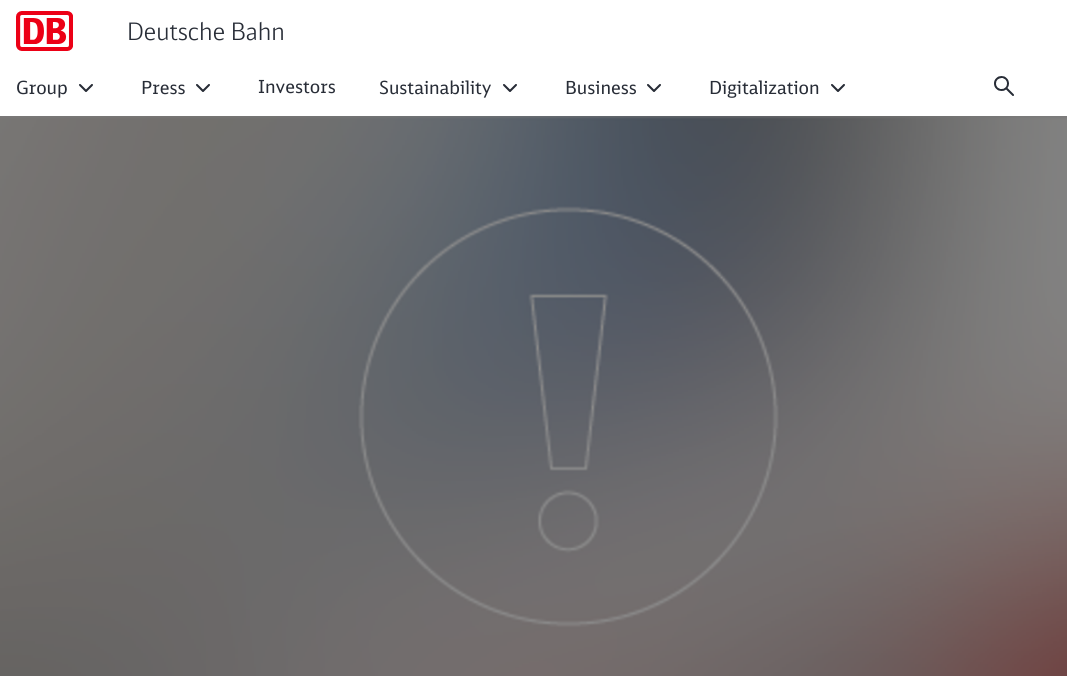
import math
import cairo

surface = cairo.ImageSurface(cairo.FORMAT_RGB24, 1067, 676)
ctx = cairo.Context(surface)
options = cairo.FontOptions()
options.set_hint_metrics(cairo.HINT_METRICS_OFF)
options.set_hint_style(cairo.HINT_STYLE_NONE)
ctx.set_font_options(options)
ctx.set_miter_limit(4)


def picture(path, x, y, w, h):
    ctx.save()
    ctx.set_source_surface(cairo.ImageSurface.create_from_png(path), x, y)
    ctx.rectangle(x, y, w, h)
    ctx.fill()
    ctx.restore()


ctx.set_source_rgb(1, 1, 1)
ctx.paint()
picture("img1.png", 16, 11, 57, 40)
ctx.select_font_face("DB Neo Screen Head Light")
ctx.set_font_size(24)
ctx.set_source_rgb(0.157, 0.176, 0.216)
ctx.move_to(127, 40)
ctx.show_text("Deutsche Bahn")
ctx.select_font_face("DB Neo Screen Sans")
ctx.set_font_size(18)
ctx.move_to(16, 94)
ctx.show_text("Group")
picture("img2.png", 79, 84, 14, 8)
ctx.move_to(141, 94)
ctx.show_text("Press")
picture("img2.png", 196, 84, 14, 8)
ctx.move_to(258, 93)
ctx.show_text("Investors")
ctx.move_to(379, 94)
ctx.show_text("Sustainability")
picture("img2.png", 503, 84, 14, 8)
ctx.move_to(565, 94)
ctx.show_text("Business")
picture("img2.png", 647, 84, 14, 8)
ctx.move_to(709, 94)
ctx.show_text("Digitalization")
picture("img2.png", 831, 84, 14, 8)
picture("img3.png", 994, 76, 20, 20)
picture("img4.png", 0, 116, 1067, 560)
surface.write_to_png("page.png")
